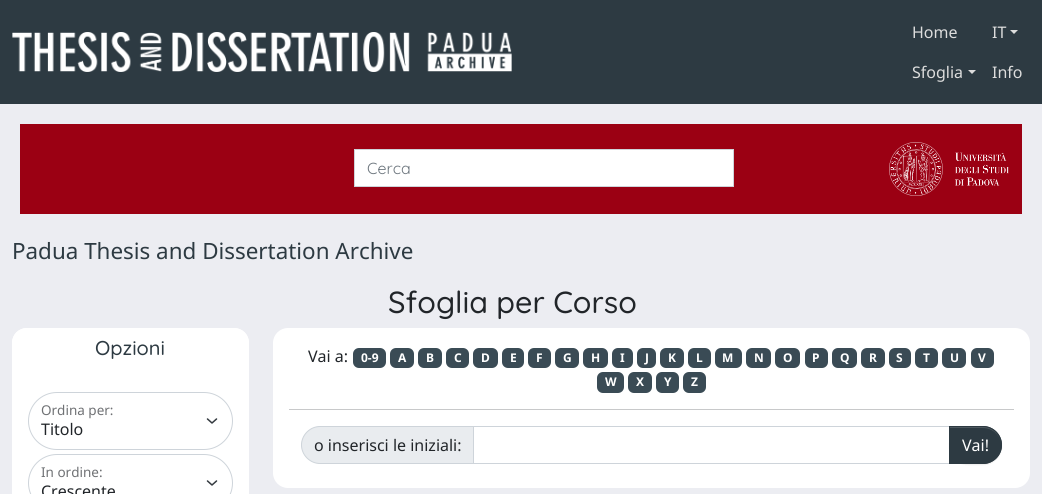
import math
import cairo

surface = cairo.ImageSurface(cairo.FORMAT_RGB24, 1042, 494)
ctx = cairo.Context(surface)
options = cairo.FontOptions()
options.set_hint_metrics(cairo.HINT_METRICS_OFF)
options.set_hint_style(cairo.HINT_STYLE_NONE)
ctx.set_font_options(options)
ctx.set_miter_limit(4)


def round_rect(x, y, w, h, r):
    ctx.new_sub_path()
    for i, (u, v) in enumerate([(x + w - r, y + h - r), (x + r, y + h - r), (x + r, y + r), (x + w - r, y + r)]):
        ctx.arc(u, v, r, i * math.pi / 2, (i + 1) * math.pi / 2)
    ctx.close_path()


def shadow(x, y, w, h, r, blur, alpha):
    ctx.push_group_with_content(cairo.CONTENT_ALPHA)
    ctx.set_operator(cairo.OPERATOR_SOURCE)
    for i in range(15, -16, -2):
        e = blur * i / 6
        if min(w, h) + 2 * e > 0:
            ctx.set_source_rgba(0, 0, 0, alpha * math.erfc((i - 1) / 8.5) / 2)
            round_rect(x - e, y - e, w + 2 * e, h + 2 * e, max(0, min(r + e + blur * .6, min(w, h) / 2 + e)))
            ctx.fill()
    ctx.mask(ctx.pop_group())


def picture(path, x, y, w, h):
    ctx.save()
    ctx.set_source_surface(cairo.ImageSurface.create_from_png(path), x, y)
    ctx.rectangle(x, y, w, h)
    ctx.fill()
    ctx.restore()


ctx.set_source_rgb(0.925, 0.929, 0.949)
ctx.paint()
ctx.set_source_rgb(0.176, 0.227, 0.259)
ctx.rectangle(0, 0, 1042, 104)
ctx.fill()
picture("img1.png", 12, 32, 500, 40)
ctx.select_font_face("Noto Sans")
ctx.set_font_size(16)
ctx.set_source_rgb(0.867, 0.867, 0.867)
ctx.move_to(912, 38)
ctx.show_text("Home")
ctx.move_to(912, 78)
ctx.show_text("Sfoglia")
ctx.new_path()
ctx.move_to(968, 70)
ctx.line_to(976, 70)
ctx.line_to(972, 74)
ctx.close_path()
ctx.fill()
ctx.move_to(992, 38)
ctx.show_text("IT")
ctx.new_path()
ctx.move_to(1010, 30)
ctx.line_to(1018, 30)
ctx.line_to(1014, 34)
ctx.close_path()
ctx.fill()
ctx.move_to(992, 78)
ctx.show_text("Info")
ctx.set_source_rgb(0.608, 0, 0.078)
ctx.rectangle(20, 124, 1002, 90)
ctx.fill()
ctx.set_source_rgb(1, 1, 1)
ctx.rectangle(354.5, 149.5, 379, 37)
ctx.fill_preserve()
ctx.set_source_rgb(0.808, 0.831, 0.855)
ctx.set_line_width(1)
ctx.stroke()
ctx.select_font_face("Quicksand")
ctx.set_source_rgb(0.424, 0.459, 0.49)
ctx.move_to(367, 174)
ctx.show_text("Cerca")
picture("img2.png", 889, 142, 120, 54)
ctx.select_font_face("Noto Sans")
ctx.set_font_size(22.4)
ctx.set_source_rgb(0.176, 0.227, 0.259)
ctx.move_to(12, 259)
ctx.show_text("Padua Thesis and Dissertation Archive")
ctx.select_font_face("Quicksand Medium")
ctx.set_font_size(30.5)
ctx.set_source_rgb(0.129, 0.145, 0.161)
ctx.move_to(388, 313)
ctx.show_text("Sfoglia per Corso")
ctx.set_source_rgb(1, 1, 1)
round_rect(12, 328, 237, 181, 15)
ctx.fill()
ctx.new_path()
ctx.move_to(27, 328)
ctx.line_to(234, 328)
ctx.curve_to(242.5, 328, 249, 334.5, 249, 343)
ctx.line_to(249, 376)
ctx.line_to(12, 376)
ctx.line_to(12, 343)
ctx.curve_to(12, 334.5, 18.5, 328, 27, 328)
ctx.close_path()
ctx.fill()
ctx.set_font_size(20)
ctx.set_source_rgb(0.176, 0.227, 0.259)
ctx.move_to(95, 355)
ctx.show_text("Opzioni")
ctx.new_path()
ctx.move_to(207.5, 419)
ctx.line_to(212, 423)
ctx.line_to(216.5, 419)
ctx.set_source_rgb(0.204, 0.227, 0.251)
ctx.set_line_width(1.5)
ctx.set_line_cap(cairo.LINE_CAP_ROUND)
ctx.set_line_join(cairo.LINE_JOIN_ROUND)
ctx.stroke()
round_rect(28.5, 392.5, 204, 57, 28.5)
ctx.set_source_rgb(0.808, 0.831, 0.855)
ctx.set_line_width(1)
ctx.set_line_cap(cairo.LINE_CAP_BUTT)
ctx.set_line_join(cairo.LINE_JOIN_MITER)
ctx.stroke()
ctx.select_font_face("Noto Sans")
ctx.set_font_size(13.5)
ctx.set_source_rgb(0.435, 0.443, 0.455)
ctx.move_to(41, 415)
ctx.show_text("Ordina per:")
ctx.set_font_size(16)
ctx.set_source_rgb(0.129, 0.145, 0.161)
ctx.move_to(41, 435)
ctx.show_text("Titolo")
ctx.new_path()
ctx.move_to(207.5, 481)
ctx.line_to(212, 485)
ctx.line_to(216.5, 481)
ctx.set_source_rgb(0.204, 0.227, 0.251)
ctx.set_line_width(1.5)
ctx.set_line_cap(cairo.LINE_CAP_ROUND)
ctx.set_line_join(cairo.LINE_JOIN_ROUND)
ctx.stroke()
round_rect(28.5, 454.5, 204, 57, 28.5)
ctx.set_source_rgb(0.808, 0.831, 0.855)
ctx.set_line_width(1)
ctx.set_line_cap(cairo.LINE_CAP_BUTT)
ctx.set_line_join(cairo.LINE_JOIN_MITER)
ctx.stroke()
ctx.set_font_size(13.5)
ctx.set_source_rgb(0.435, 0.443, 0.455)
ctx.move_to(41, 477)
ctx.show_text("In ordine:")
ctx.set_font_size(16)
ctx.set_source_rgb(0.129, 0.145, 0.161)
ctx.move_to(41, 497)
ctx.show_text("Crescente")
ctx.set_source_rgb(1, 1, 1)
round_rect(273, 328, 757, 160, 15)
ctx.fill()
ctx.set_source_rgb(0.129, 0.145, 0.161)
ctx.move_to(308, 362)
ctx.show_text("Vai a:")
ctx.set_source_rgb(0.227, 0.294, 0.333)
round_rect(353, 348, 33, 20, 6)
ctx.fill()
ctx.select_font_face("Noto Sans", cairo.FONT_SLANT_NORMAL, cairo.FONT_WEIGHT_BOLD)
ctx.set_font_size(12)
ctx.set_source_rgb(1, 1, 1)
ctx.move_to(361, 362)
ctx.show_text("0-9")
ctx.set_source_rgb(0.227, 0.294, 0.333)
round_rect(390, 348, 24, 20, 6)
ctx.fill()
ctx.set_source_rgb(1, 1, 1)
ctx.move_to(398, 362)
ctx.show_text("A")
ctx.set_source_rgb(0.227, 0.294, 0.333)
round_rect(418, 348, 24, 20, 6)
ctx.fill()
ctx.set_source_rgb(1, 1, 1)
ctx.move_to(426, 362)
ctx.show_text("B")
ctx.set_source_rgb(0.227, 0.294, 0.333)
round_rect(446, 348, 23, 20, 6)
ctx.fill()
ctx.set_source_rgb(1, 1, 1)
ctx.move_to(454, 362)
ctx.show_text("C")
ctx.set_source_rgb(0.227, 0.294, 0.333)
round_rect(473, 348, 25, 20, 6)
ctx.fill()
ctx.set_source_rgb(1, 1, 1)
ctx.move_to(481, 362)
ctx.show_text("D")
ctx.set_source_rgb(0.227, 0.294, 0.333)
round_rect(502, 348, 22, 20, 6)
ctx.fill()
ctx.set_source_rgb(1, 1, 1)
ctx.move_to(510, 362)
ctx.show_text("E")
ctx.set_source_rgb(0.227, 0.294, 0.333)
round_rect(528, 348, 23, 20, 6)
ctx.fill()
ctx.set_source_rgb(1, 1, 1)
ctx.move_to(536, 362)
ctx.show_text("F")
ctx.set_source_rgb(0.227, 0.294, 0.333)
round_rect(555, 348, 24, 20, 6)
ctx.fill()
ctx.set_source_rgb(1, 1, 1)
ctx.move_to(563, 362)
ctx.show_text("G")
ctx.set_source_rgb(0.227, 0.294, 0.333)
round_rect(583, 348, 25, 20, 6)
ctx.fill()
ctx.set_source_rgb(1, 1, 1)
ctx.move_to(591, 362)
ctx.show_text("H")
ctx.set_source_rgb(0.227, 0.294, 0.333)
round_rect(612, 348, 21, 20, 6)
ctx.fill()
ctx.set_source_rgb(1, 1, 1)
ctx.move_to(620, 362)
ctx.show_text("I")
ctx.set_source_rgb(0.227, 0.294, 0.333)
round_rect(637, 348, 19, 20, 6)
ctx.fill()
ctx.set_source_rgb(1, 1, 1)
ctx.move_to(645, 362)
ctx.show_text("J")
ctx.set_source_rgb(0.227, 0.294, 0.333)
round_rect(660, 348, 24, 20, 6)
ctx.fill()
ctx.set_source_rgb(1, 1, 1)
ctx.move_to(668, 362)
ctx.show_text("K")
ctx.set_source_rgb(0.227, 0.294, 0.333)
round_rect(688, 348, 23, 20, 6)
ctx.fill()
ctx.set_source_rgb(1, 1, 1)
ctx.move_to(696, 362)
ctx.show_text("L")
ctx.set_source_rgb(0.227, 0.294, 0.333)
round_rect(715, 348, 27, 20, 6)
ctx.fill()
ctx.set_source_rgb(1, 1, 1)
ctx.move_to(722, 362)
ctx.show_text("M")
ctx.set_source_rgb(0.227, 0.294, 0.333)
round_rect(746, 348, 25, 20, 6)
ctx.fill()
ctx.set_source_rgb(1, 1, 1)
ctx.move_to(754, 362)
ctx.show_text("N")
ctx.set_source_rgb(0.227, 0.294, 0.333)
round_rect(775, 348, 25, 20, 6)
ctx.fill()
ctx.set_source_rgb(1, 1, 1)
ctx.move_to(783, 362)
ctx.show_text("O")
ctx.set_source_rgb(0.227, 0.294, 0.333)
round_rect(805, 348, 23, 20, 6)
ctx.fill()
ctx.set_source_rgb(1, 1, 1)
ctx.move_to(812, 362)
ctx.show_text("P")
ctx.set_source_rgb(0.227, 0.294, 0.333)
round_rect(832, 348, 25, 20, 6)
ctx.fill()
ctx.set_source_rgb(1, 1, 1)
ctx.move_to(840, 362)
ctx.show_text("Q")
ctx.set_source_rgb(0.227, 0.294, 0.333)
round_rect(861, 348, 24, 20, 6)
ctx.fill()
ctx.set_source_rgb(1, 1, 1)
ctx.move_to(869, 362)
ctx.show_text("R")
ctx.set_source_rgb(0.227, 0.294, 0.333)
round_rect(889, 348, 22, 20, 6)
ctx.fill()
ctx.set_source_rgb(1, 1, 1)
ctx.move_to(896, 362)
ctx.show_text("S")
ctx.set_source_rgb(0.227, 0.294, 0.333)
round_rect(915, 348, 23, 20, 6)
ctx.fill()
ctx.set_source_rgb(1, 1, 1)
ctx.move_to(923, 362)
ctx.show_text("T")
ctx.set_source_rgb(0.227, 0.294, 0.333)
round_rect(942, 348, 24, 20, 6)
ctx.fill()
ctx.set_source_rgb(1, 1, 1)
ctx.move_to(950, 362)
ctx.show_text("U")
ctx.set_source_rgb(0.227, 0.294, 0.333)
round_rect(971, 348, 23, 20, 6)
ctx.fill()
ctx.set_source_rgb(1, 1, 1)
ctx.move_to(978, 362)
ctx.show_text("V")
ctx.set_source_rgb(0.227, 0.294, 0.333)
round_rect(597, 372, 27, 21, 6)
ctx.fill()
ctx.set_source_rgb(1, 1, 1)
ctx.move_to(605, 386)
ctx.show_text("W")
ctx.set_source_rgb(0.227, 0.294, 0.333)
round_rect(628, 372, 24, 21, 6)
ctx.fill()
ctx.set_source_rgb(1, 1, 1)
ctx.move_to(636, 386)
ctx.show_text("X")
ctx.set_source_rgb(0.227, 0.294, 0.333)
round_rect(656, 372, 23, 21, 6)
ctx.fill()
ctx.set_source_rgb(1, 1, 1)
ctx.move_to(664, 386)
ctx.show_text("Y")
ctx.set_source_rgb(0.227, 0.294, 0.333)
round_rect(683, 372, 23, 21, 6)
ctx.fill()
ctx.set_source_rgb(1, 1, 1)
ctx.move_to(691, 386)
ctx.show_text("Z")
ctx.set_source_rgb(0.784, 0.788, 0.792)
ctx.rectangle(289, 409, 725, 1)
ctx.fill()
ctx.set_source_rgb(0.914, 0.925, 0.937)
ctx.new_path()
ctx.move_to(320, 426.5)
ctx.line_to(473.5, 426.5)
ctx.line_to(473.5, 463.5)
ctx.line_to(320, 463.5)
ctx.curve_to(310, 463.5, 301.5, 455, 301.5, 445)
ctx.curve_to(301.5, 435, 310, 426.5, 320, 426.5)
ctx.close_path()
ctx.fill_preserve()
ctx.set_source_rgb(0.808, 0.831, 0.855)
ctx.stroke()
ctx.select_font_face("Noto Sans")
ctx.set_font_size(16)
ctx.set_source_rgb(0.129, 0.145, 0.161)
ctx.move_to(314, 451)
ctx.show_text("o inserisci le iniziali:")
ctx.rectangle(473.5, 426.5, 476, 37)
ctx.set_source_rgb(0.808, 0.831, 0.855)
ctx.stroke()
ctx.set_source_rgb(0, 0, 0)
shadow(949, 427, 53, 38, 19, 0.5, 0.07)
ctx.set_source_rgb(0.176, 0.227, 0.259)
ctx.new_path()
ctx.move_to(949, 426)
ctx.line_to(983, 426)
ctx.curve_to(993.5, 426, 1002, 434.5, 1002, 445)
ctx.curve_to(1002, 455.5, 993.5, 464, 983, 464)
ctx.line_to(949, 464)
ctx.close_path()
ctx.fill()
ctx.set_source_rgb(0.302, 0.345, 0.369)
ctx.new_path()
ctx.move_to(950, 428)
ctx.line_to(983, 428)
ctx.curve_to(993, 428, 1001, 436, 1001, 445)
ctx.curve_to(1001, 437, 995, 429, 987, 427)
ctx.line_to(950, 427)
ctx.close_path()
ctx.fill()
ctx.new_path()
ctx.move_to(949.5, 426.5)
ctx.line_to(983, 426.5)
ctx.curve_to(993, 426.5, 1001.5, 435, 1001.5, 445)
ctx.curve_to(1001.5, 455, 993, 463.5, 983, 463.5)
ctx.line_to(949.5, 463.5)
ctx.close_path()
ctx.set_source_rgb(0.176, 0.227, 0.259)
ctx.stroke()
ctx.set_source_rgb(1, 1, 1)
ctx.move_to(962, 451)
ctx.show_text("Vai!")
surface.write_to_png("page.png")
